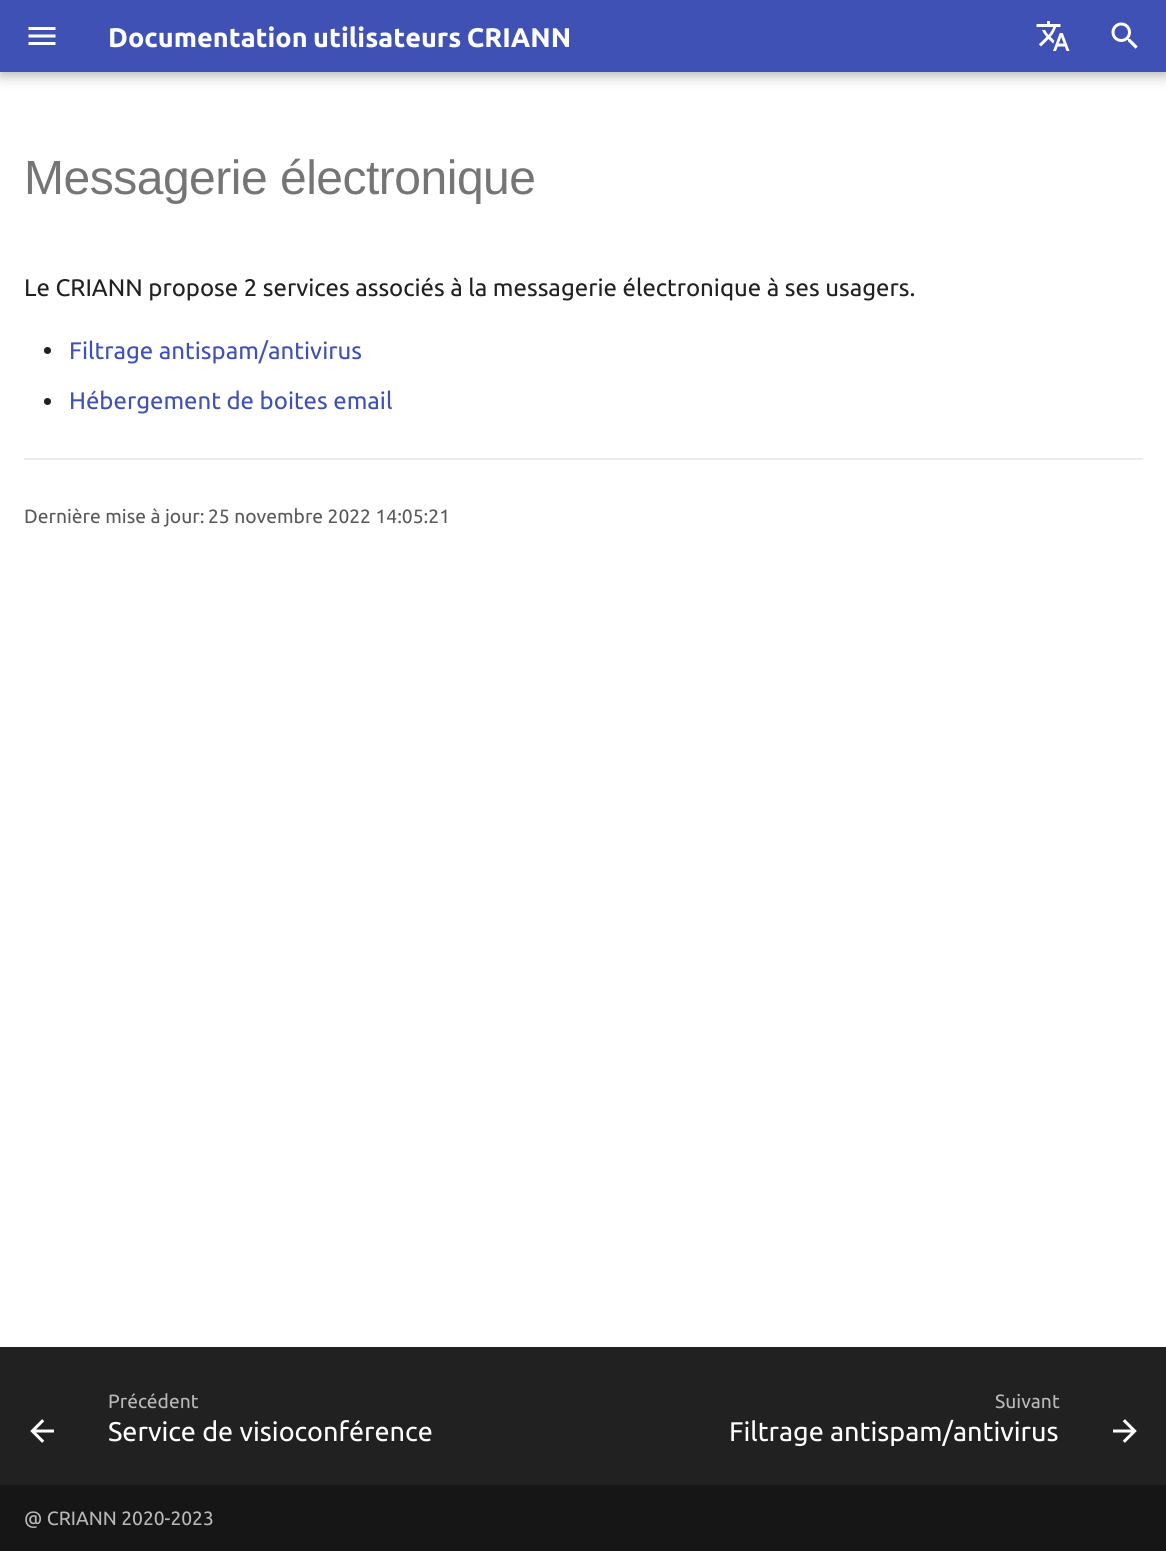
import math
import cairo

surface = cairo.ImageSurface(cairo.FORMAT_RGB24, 1166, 1551)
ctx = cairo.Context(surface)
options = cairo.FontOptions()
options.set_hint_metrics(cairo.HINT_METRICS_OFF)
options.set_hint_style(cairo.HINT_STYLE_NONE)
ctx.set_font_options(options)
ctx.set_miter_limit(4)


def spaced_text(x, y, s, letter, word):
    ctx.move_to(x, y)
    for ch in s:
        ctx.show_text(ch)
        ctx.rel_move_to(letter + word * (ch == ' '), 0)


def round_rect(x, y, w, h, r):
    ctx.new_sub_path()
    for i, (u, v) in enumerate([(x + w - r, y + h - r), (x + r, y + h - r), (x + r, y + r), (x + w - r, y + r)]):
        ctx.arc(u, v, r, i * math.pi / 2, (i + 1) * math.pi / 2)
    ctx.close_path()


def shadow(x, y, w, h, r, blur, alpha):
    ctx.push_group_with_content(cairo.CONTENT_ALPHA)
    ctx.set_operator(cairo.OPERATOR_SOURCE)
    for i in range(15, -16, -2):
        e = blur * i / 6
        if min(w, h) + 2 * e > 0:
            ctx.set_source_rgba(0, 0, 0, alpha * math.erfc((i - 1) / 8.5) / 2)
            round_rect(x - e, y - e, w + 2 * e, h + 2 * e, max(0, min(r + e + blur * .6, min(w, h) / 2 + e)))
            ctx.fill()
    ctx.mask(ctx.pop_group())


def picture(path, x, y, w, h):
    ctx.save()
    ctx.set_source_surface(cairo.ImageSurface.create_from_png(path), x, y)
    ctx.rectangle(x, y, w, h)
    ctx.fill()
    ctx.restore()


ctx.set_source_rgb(1, 1, 1)
ctx.paint()
ctx.set_source_rgb(0, 0, 0)
shadow(0, 6, 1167, 72, 0, 6, 0.2)
shadow(0, 0, 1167, 72, 0, 3, 0.1)
ctx.set_source_rgb(0.251, 0.318, 0.71)
ctx.rectangle(0, 0, 1166, 72)
ctx.fill()
picture("img1.png", 28, 27, 28, 18)
ctx.select_font_face("Ubuntu", cairo.FONT_SLANT_NORMAL, cairo.FONT_WEIGHT_BOLD)
ctx.set_font_size(27)
ctx.set_source_rgb(1, 1, 1)
spaced_text(108, 47, "Documentation utilisateurs CRIANN", 0, -1)
picture("img2.png", 1036, 21, 34, 30)
picture("img3.png", 1111, 22, 27, 27)
ctx.select_font_face("Liberation Sans")
ctx.set_font_size(48)
ctx.set_source_rgb(0.459, 0.459, 0.459)
spaced_text(24, 194, "Messagerie électronique", -0.5, 0)
ctx.select_font_face("Ubuntu")
ctx.set_font_size(24)
ctx.set_source_rgb(0.129, 0.129, 0.129)
ctx.move_to(24, 296)
ctx.show_text("Le CRIANN propose 2 services associés à la messagerie électronique à ses usagers.")
ctx.new_path()
ctx.arc(47.5, 350.5, 3.5, 0, 2 * math.pi)
ctx.fill()
ctx.set_source_rgb(0.251, 0.318, 0.71)
ctx.move_to(69, 359)
ctx.show_text("Filtrage antispam/antivirus")
ctx.set_source_rgb(0.129, 0.129, 0.129)
ctx.new_path()
ctx.arc(47.5, 401.5, 3.5, 0, 2 * math.pi)
ctx.fill()
ctx.set_source_rgb(0.251, 0.318, 0.71)
ctx.move_to(69, 409)
ctx.show_text("Hébergement de boites email")
ctx.set_source_rgb(0.929, 0.929, 0.929)
ctx.rectangle(24, 458, 1119, 2)
ctx.fill()
ctx.set_font_size(19.25)
ctx.set_source_rgb(0.349, 0.349, 0.349)
ctx.move_to(24, 523)
ctx.show_text("Dernière mise à jour:")
ctx.move_to(208, 523)
ctx.show_text("25 novembre 2022 14:05:21")
ctx.set_source_rgb(0.129, 0.129, 0.129)
ctx.rectangle(0, 1347, 1166, 138)
ctx.fill()
picture("img4.png", 30, 1419, 24, 24)
ctx.set_source_rgb(0.725, 0.725, 0.725)
ctx.move_to(108, 1408)
ctx.show_text("Précédent")
ctx.set_font_size(27)
ctx.set_source_rgb(1, 1, 1)
ctx.move_to(108, 1441)
ctx.show_text("Service de visioconférence")
ctx.set_font_size(19.25)
ctx.set_source_rgb(0.725, 0.725, 0.725)
ctx.move_to(995, 1408)
ctx.show_text("Suivant")
ctx.set_font_size(27)
ctx.set_source_rgb(1, 1, 1)
ctx.move_to(729, 1441)
ctx.show_text("Filtrage antispam/antivirus")
picture("img5.png", 1113, 1419, 24, 24)
ctx.set_source_rgb(0.086, 0.086, 0.086)
ctx.rectangle(0, 1485, 1166, 66)
ctx.fill()
ctx.set_font_size(19.25)
ctx.set_source_rgb(0.725, 0.725, 0.725)
ctx.move_to(24, 1525)
ctx.show_text("@ CRIANN 2020-2023")
surface.write_to_png("page.png")
